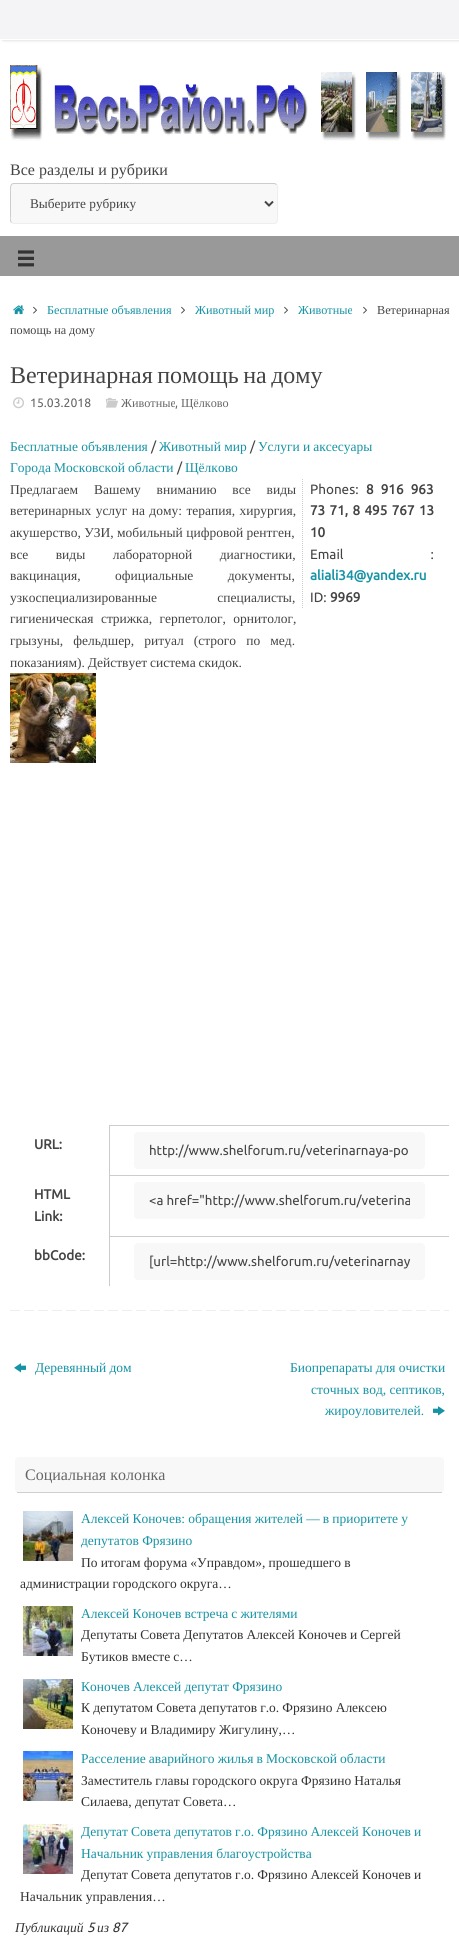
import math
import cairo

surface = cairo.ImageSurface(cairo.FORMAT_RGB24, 459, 1940)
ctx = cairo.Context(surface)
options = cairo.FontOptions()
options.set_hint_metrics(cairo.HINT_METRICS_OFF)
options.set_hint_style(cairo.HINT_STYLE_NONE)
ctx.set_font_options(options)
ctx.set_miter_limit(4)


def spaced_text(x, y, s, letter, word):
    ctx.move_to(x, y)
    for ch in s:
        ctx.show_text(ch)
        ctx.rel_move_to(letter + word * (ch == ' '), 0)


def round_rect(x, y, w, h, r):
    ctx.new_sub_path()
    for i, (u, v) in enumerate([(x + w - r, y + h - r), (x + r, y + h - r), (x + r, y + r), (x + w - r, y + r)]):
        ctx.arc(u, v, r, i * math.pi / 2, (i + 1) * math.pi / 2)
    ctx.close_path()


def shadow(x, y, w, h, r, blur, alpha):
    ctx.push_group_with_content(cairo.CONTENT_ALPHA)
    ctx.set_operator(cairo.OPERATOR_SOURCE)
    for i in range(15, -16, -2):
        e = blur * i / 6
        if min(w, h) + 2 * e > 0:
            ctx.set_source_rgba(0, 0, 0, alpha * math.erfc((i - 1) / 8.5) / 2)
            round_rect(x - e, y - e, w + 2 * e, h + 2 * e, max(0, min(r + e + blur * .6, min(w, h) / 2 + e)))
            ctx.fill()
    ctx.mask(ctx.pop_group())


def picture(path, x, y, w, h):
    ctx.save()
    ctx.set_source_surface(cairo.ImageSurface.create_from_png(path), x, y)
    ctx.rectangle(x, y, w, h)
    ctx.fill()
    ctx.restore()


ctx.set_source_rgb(1, 1, 1)
ctx.paint()
ctx.set_source_rgb(0.8, 0.8, 0.808)
shadow(3, 0, 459, 40, 0, 1.5, 1)
ctx.set_source_rgb(0.957, 0.957, 0.965)
ctx.rectangle(0, 0, 459, 39)
ctx.fill()
ctx.set_source_rgb(1, 1, 1)
ctx.rectangle(0, 39, 459, 1)
ctx.fill()
picture("img1.png", 10, 65, 436, 76)
ctx.select_font_face("Liberation Serif")
ctx.set_font_size(16)
ctx.set_source_rgb(0.267, 0.267, 0.267)
ctx.move_to(10, 175)
ctx.show_text("Все разделы и рубрики")
ctx.set_source_rgb(0.969, 0.969, 0.969)
round_rect(10, 183, 268, 41, 4)
ctx.fill()
ctx.new_path()
ctx.move_to(276.5, 184.5)
ctx.curve_to(278.5, 186.5, 277.5, 190.5, 277.5, 192.5)
ctx.line_to(277.5, 214.5)
ctx.curve_to(277.5, 217, 278.5, 223.5, 274, 223.5)
ctx.line_to(13.5, 223.5)
ctx.line_to(11.5, 222.5)
ctx.set_source_rgb(0.933, 0.933, 0.933)
ctx.set_line_width(1)
ctx.stroke()
ctx.save()
ctx.rectangle(10, 157, 439, 67)
ctx.clip()
ctx.new_path()
ctx.move_to(11.5, 222.5)
ctx.curve_to(9.5, 220.5, 10.5, 216.5, 10.5, 214.5)
ctx.line_to(10.5, 192.5)
ctx.curve_to(10.5, 190, 9.5, 183.5, 14, 183.5)
ctx.line_to(274.5, 183.5)
ctx.line_to(276.5, 184.5)
ctx.set_source_rgb(0.8, 0.8, 0.8)
ctx.stroke()
ctx.restore()
ctx.new_path()
ctx.move_to(265, 201.5)
ctx.line_to(269, 205.5)
ctx.line_to(273, 201.5)
ctx.set_source_rgb(0.267, 0.267, 0.267)
ctx.set_line_width(2)
ctx.stroke()
ctx.set_font_size(13.3)
ctx.move_to(30, 208)
ctx.show_text("Выберите рубрику")
ctx.set_source_rgb(0.6, 0.6, 0.6)
ctx.rectangle(0, 236, 459, 40)
ctx.fill()
picture("img2.png", 18, 250, 16, 17)
picture("img3.png", 13, 305, 12, 10)
picture("img4.png", 33, 306, 4, 8)
ctx.set_font_size(12.2)
ctx.set_source_rgb(0.086, 0.576, 0.647)
ctx.move_to(47, 314)
ctx.show_text("Бесплатные объявления")
picture("img4.png", 181, 306, 4, 8)
ctx.move_to(195, 314)
ctx.show_text("Животный мир")
picture("img4.png", 284, 306, 4, 8)
ctx.move_to(298, 314)
ctx.show_text("Животные")
picture("img4.png", 363, 306, 4, 8)
ctx.set_source_rgb(0.267, 0.267, 0.267)
ctx.move_to(377, 314)
ctx.show_text("Ветеринарная")
spaced_text(10, 334, "помощь на дому", 0, -0.25)
ctx.set_font_size(24)
spaced_text(10, 383, "Ветеринарная помощь на дому", 0, -1.5)
picture("img5.png", 13, 397, 11, 12)
ctx.select_font_face("Ubuntu")
ctx.set_font_size(12.2)
ctx.set_source_rgb(0.4, 0.4, 0.4)
ctx.move_to(30, 407)
ctx.show_text("15.03.2018")
picture("img6.png", 106, 397, 12, 11)
ctx.select_font_face("Liberation Serif")
ctx.move_to(121, 407)
ctx.show_text("Животные")
ctx.select_font_face("Ubuntu")
ctx.move_to(175, 407)
ctx.show_text(",")
ctx.select_font_face("Liberation Serif")
ctx.move_to(181, 407)
ctx.show_text("Щёлково")
ctx.set_font_size(13.5)
ctx.set_source_rgb(0.086, 0.576, 0.647)
ctx.move_to(10, 451)
ctx.show_text("Бесплатные объявления")
ctx.select_font_face("Ubuntu")
ctx.set_source_rgb(0.267, 0.267, 0.267)
ctx.move_to(151, 451)
ctx.show_text("/")
ctx.select_font_face("Liberation Serif")
ctx.set_source_rgb(0.086, 0.576, 0.647)
ctx.move_to(159, 451)
ctx.show_text("Животный мир")
ctx.select_font_face("Ubuntu")
ctx.set_source_rgb(0.267, 0.267, 0.267)
ctx.move_to(250, 451)
ctx.show_text("/")
ctx.select_font_face("Liberation Serif")
ctx.set_source_rgb(0.086, 0.576, 0.647)
spaced_text(258, 451, "Услуги и аксесуары", 0, -0.25)
spaced_text(10, 472, "Города Московской области", 0, -0.25)
ctx.select_font_face("Ubuntu")
ctx.set_source_rgb(0.267, 0.267, 0.267)
ctx.move_to(177, 472)
ctx.show_text("/")
ctx.select_font_face("Liberation Serif")
ctx.set_source_rgb(0.086, 0.576, 0.647)
ctx.move_to(185, 472)
ctx.show_text("Щёлково")
ctx.set_source_rgb(0.267, 0.267, 0.267)
spaced_text(10, 494, "Предлагаем Вашему вниманию все виды", 0, 12.5)
spaced_text(10, 515, "ветеринарных услуг на дому: терапия, хирургия,", 0, 1)
ctx.move_to(10, 537)
ctx.show_text("акушерство, УЗИ, мобильный цифровой рентген,")
spaced_text(10, 559, "все виды лабораторной диагностики,", 0, 24)
spaced_text(10, 580, "вакцинация, официальные документы,", 0, 31)
spaced_text(10, 602, "узкоспециализированные специалисты,", 0, 57)
spaced_text(10, 623, "гигиеническая стрижка, герпетолог, орнитолог,", 0, 4)
spaced_text(10, 645, "грызуны, фельдшер, ритуал (строго по мед.", 0, 6.75)
spaced_text(10, 667, "показаниям). Действует система скидок.", 0, -0.5)
ctx.new_path()
ctx.move_to(302.5, 479)
ctx.line_to(302.5, 608)
ctx.set_source_rgb(0.8, 0.8, 0.8)
ctx.set_line_width(1)
ctx.set_dash([1, 1])
ctx.stroke()
ctx.select_font_face("Ubuntu")
ctx.set_source_rgb(0.267, 0.267, 0.267)
ctx.move_to(310, 494)
ctx.show_text("Phones:")
ctx.select_font_face("Ubuntu", cairo.FONT_SLANT_NORMAL, cairo.FONT_WEIGHT_BOLD)
spaced_text(366, 494, "8 916 963", 0, 4)
spaced_text(310, 515, "73 71, 8 495 767 13", 0, 1.25)
ctx.move_to(310, 537)
ctx.show_text("10")
ctx.select_font_face("Ubuntu")
spaced_text(310, 559, "Email :", 0, 84)
ctx.select_font_face("Ubuntu", cairo.FONT_SLANT_NORMAL, cairo.FONT_WEIGHT_BOLD)
ctx.set_source_rgb(0.086, 0.576, 0.647)
ctx.move_to(310, 580)
ctx.show_text("aliali34@yandex.ru")
ctx.select_font_face("Ubuntu")
ctx.set_source_rgb(0.267, 0.267, 0.267)
ctx.move_to(310, 602)
ctx.show_text("ID:")
ctx.select_font_face("Ubuntu", cairo.FONT_SLANT_NORMAL, cairo.FONT_WEIGHT_BOLD)
ctx.move_to(330, 602)
ctx.show_text("9969")
picture("img7.png", 10, 673, 86, 90)
ctx.set_source_rgb(0.8, 0.8, 0.8)
ctx.rectangle(109, 1125, 340, 1)
ctx.fill()
ctx.rectangle(109, 1175, 340, 1)
ctx.fill()
ctx.rectangle(109, 1236, 340, 1)
ctx.fill()
ctx.rectangle(109, 1236, 1, 50)
ctx.fill()
ctx.rectangle(109, 1175, 1, 62)
ctx.fill()
ctx.rectangle(109, 1125, 1, 51)
ctx.fill()
ctx.set_source_rgb(0.267, 0.267, 0.267)
ctx.move_to(34, 1149)
ctx.show_text("URL:")
ctx.set_source_rgb(0.969, 0.969, 0.969)
round_rect(134, 1132, 291, 37, 4)
ctx.fill()
ctx.select_font_face("Ubuntu")
ctx.set_font_size(13.3)
ctx.set_source_rgb(0.267, 0.267, 0.267)
ctx.move_to(149, 1155)
ctx.show_text("http://www.shelforum.ru/veterinarnaya-po")
ctx.select_font_face("Ubuntu", cairo.FONT_SLANT_NORMAL, cairo.FONT_WEIGHT_BOLD)
ctx.set_font_size(13.5)
ctx.move_to(34, 1199)
ctx.show_text("HTML")
ctx.move_to(34, 1221)
ctx.show_text("Link:")
ctx.set_source_rgb(0.969, 0.969, 0.969)
round_rect(134, 1182, 291, 37, 4)
ctx.fill()
ctx.save()
ctx.rectangle(149, 1192, 261, 17)
ctx.clip()
ctx.select_font_face("Ubuntu")
ctx.set_font_size(13.3)
ctx.set_source_rgb(0.267, 0.267, 0.267)
ctx.move_to(149, 1205)
ctx.show_text("<a href=\"http://www.shelforum.ru/veterina")
ctx.restore()
ctx.set_source_rgb(0.267, 0.267, 0.267)
ctx.move_to(34, 1260)
ctx.show_text("bbCode:")
ctx.set_source_rgb(0.969, 0.969, 0.969)
round_rect(134, 1243, 291, 37, 4)
ctx.fill()
ctx.select_font_face("Ubuntu")
ctx.set_font_size(13.3)
ctx.set_source_rgb(0.267, 0.267, 0.267)
ctx.move_to(149, 1266)
ctx.show_text("[url=http://www.shelforum.ru/veterinarnay")
picture("img8.png", 10, 1310, 439, 1)
picture("img9.png", 14, 1363, 12, 10)
ctx.select_font_face("Liberation Serif")
ctx.set_font_size(13.5)
ctx.set_source_rgb(0.086, 0.576, 0.647)
spaced_text(35, 1372, "Деревянный дом", 0, -0.25)
spaced_text(290, 1372, "Биопрепараты для очистки", 0, -0.25)
ctx.move_to(311, 1394)
ctx.show_text("сточных вод, септиков,")
ctx.move_to(325, 1415)
ctx.show_text("жироуловителей.")
picture("img10.png", 433, 1406, 12, 10)
ctx.set_source_rgb(0.969, 0.969, 0.969)
round_rect(15, 1457, 429, 36, 4)
ctx.fill()
ctx.set_source_rgb(0.812, 0.812, 0.812)
ctx.rectangle(17, 1492, 425, 1)
ctx.fill()
ctx.set_font_size(16)
ctx.set_source_rgb(0.4, 0.4, 0.4)
ctx.move_to(25, 1480)
ctx.show_text("Социальная колонка")
picture("img11.png", 23, 1511, 50, 50)
ctx.set_font_size(13.5)
ctx.set_source_rgb(0.086, 0.576, 0.647)
spaced_text(81, 1523, "Алексей Коночев: обращения жителей — в приоритете у", 0, -0.25)
ctx.move_to(81, 1545)
ctx.show_text("депутатов Фрязино")
ctx.set_source_rgb(0.2, 0.2, 0.2)
spaced_text(81, 1567, "По итогам форума «Управдом», прошедшего в", 0, -0.25)
spaced_text(20, 1588, "администрации городского округа…", 0, -0.25)
picture("img12.png", 23, 1606, 50, 50)
ctx.set_source_rgb(0.086, 0.576, 0.647)
spaced_text(81, 1618, "Алексей Коночев встреча с жителями", 0, -0.25)
ctx.set_source_rgb(0.2, 0.2, 0.2)
spaced_text(81, 1639, "Депутаты Совета Депутатов Алексей Коночев и Сергей", 0, -0.25)
spaced_text(81, 1661, "Бутиков вместе с…", 0, -0.25)
picture("img13.png", 23, 1679, 50, 50)
ctx.set_source_rgb(0.086, 0.576, 0.647)
spaced_text(81, 1691, "Коночев Алексей депутат Фрязино", 0, -0.25)
ctx.set_source_rgb(0.2, 0.2, 0.2)
spaced_text(81, 1712, "К депутатом Совета депутатов г.о. Фрязино Алексею", 0, -0.25)
ctx.move_to(81, 1734)
ctx.show_text("Коночеву и Владимиру Жигулину,…")
picture("img14.png", 23, 1751, 50, 50)
ctx.set_source_rgb(0.086, 0.576, 0.647)
spaced_text(81, 1763, "Расселение аварийного жилья в Московской области", 0, -0.25)
ctx.set_source_rgb(0.2, 0.2, 0.2)
spaced_text(81, 1785, "Заместитель главы городского округа Фрязино Наталья", 0, -0.25)
ctx.move_to(81, 1806)
ctx.show_text("Силаева, депутат Совета…")
picture("img15.png", 23, 1824, 50, 50)
ctx.set_source_rgb(0.086, 0.576, 0.647)
spaced_text(81, 1836, "Депутат Совета депутатов г.о. Фрязино Алексей Коночев и", 0, -0.25)
spaced_text(81, 1858, "Начальник управления благоустройства", 0, -0.25)
ctx.set_source_rgb(0.2, 0.2, 0.2)
spaced_text(81, 1879, "Депутат Совета депутатов г.о. Фрязино Алексей Коночев и", 0, -0.25)
ctx.move_to(20, 1901)
ctx.show_text("Начальник управления…")
ctx.select_font_face("Liberation Serif", cairo.FONT_SLANT_ITALIC)
ctx.move_to(15, 1932)
ctx.show_text("Публикаций")
ctx.select_font_face("Ubuntu", cairo.FONT_SLANT_ITALIC)
ctx.move_to(87, 1932)
ctx.show_text("5")
ctx.select_font_face("Liberation Serif", cairo.FONT_SLANT_ITALIC)
ctx.move_to(97, 1932)
ctx.show_text("из")
ctx.select_font_face("Ubuntu", cairo.FONT_SLANT_ITALIC)
ctx.move_to(112, 1932)
ctx.show_text("87")
surface.write_to_png("page.png")
